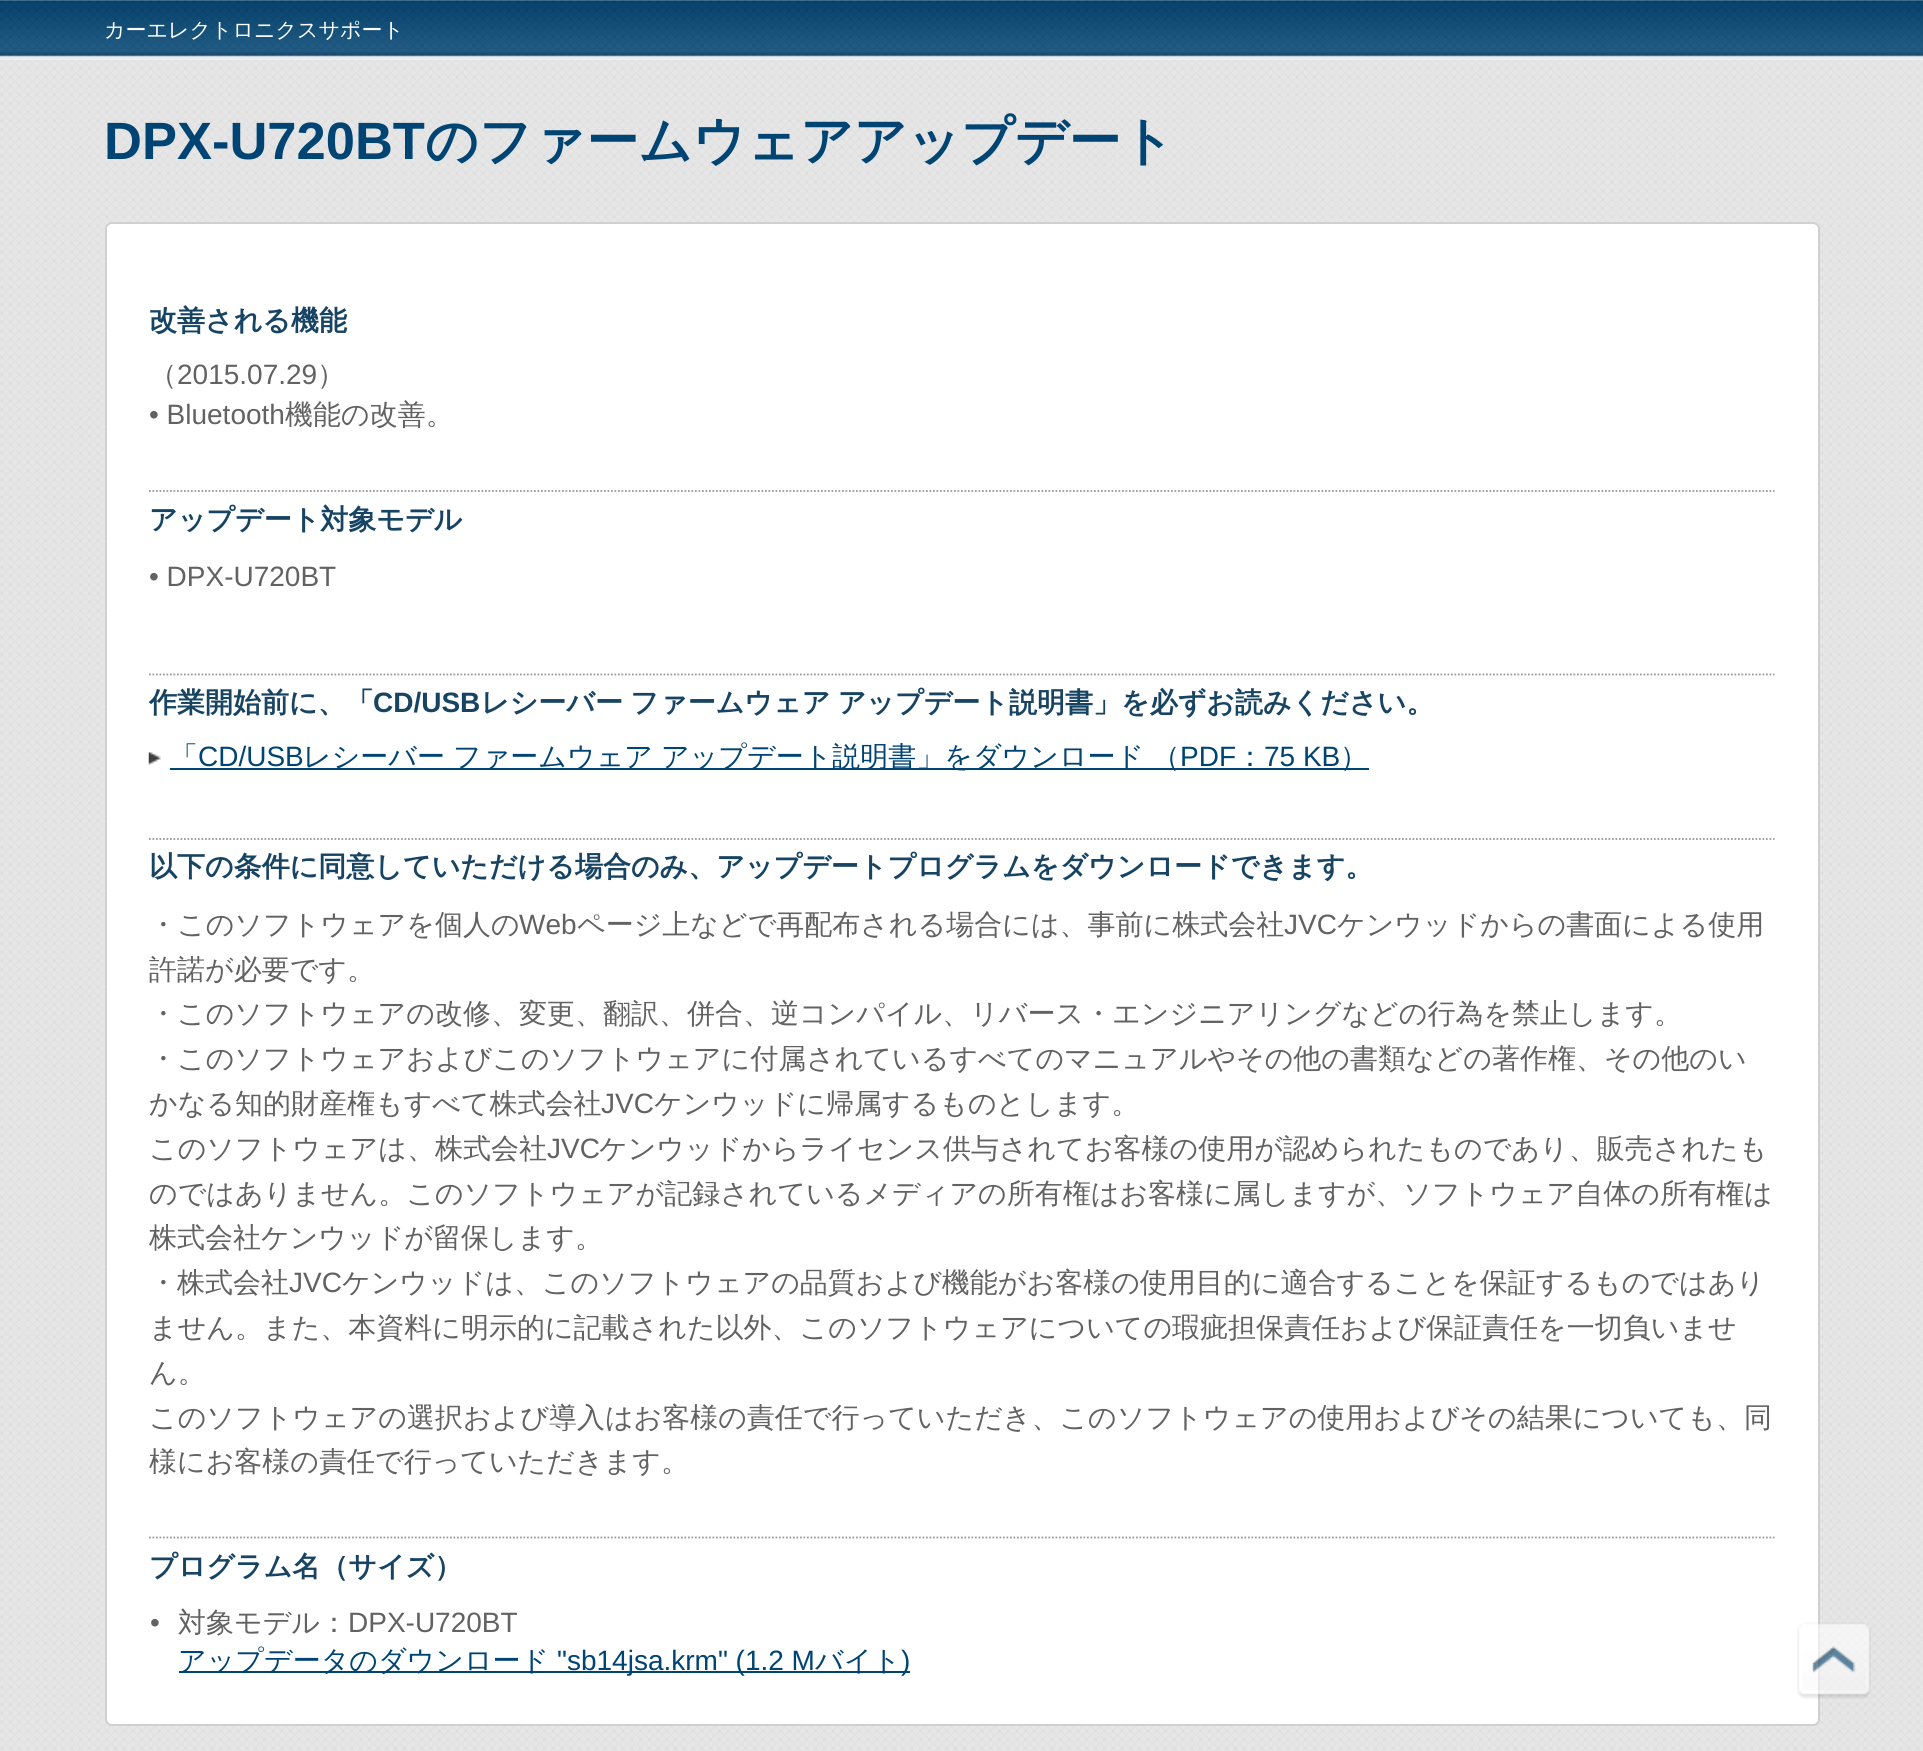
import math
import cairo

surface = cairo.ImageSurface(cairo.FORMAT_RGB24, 1923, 1751)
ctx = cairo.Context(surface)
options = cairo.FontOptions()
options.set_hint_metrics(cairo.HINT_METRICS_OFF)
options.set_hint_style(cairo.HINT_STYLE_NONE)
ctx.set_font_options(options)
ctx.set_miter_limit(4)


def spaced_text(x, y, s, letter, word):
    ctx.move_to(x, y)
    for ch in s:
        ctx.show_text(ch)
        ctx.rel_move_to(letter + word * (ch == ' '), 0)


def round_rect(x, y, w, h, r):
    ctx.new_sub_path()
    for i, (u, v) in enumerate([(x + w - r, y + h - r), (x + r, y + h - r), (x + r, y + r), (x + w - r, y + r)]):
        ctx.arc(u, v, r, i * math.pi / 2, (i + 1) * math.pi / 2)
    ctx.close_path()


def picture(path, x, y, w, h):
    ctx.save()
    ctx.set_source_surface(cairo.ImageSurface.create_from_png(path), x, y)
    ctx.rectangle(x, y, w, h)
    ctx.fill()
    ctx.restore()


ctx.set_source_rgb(1, 1, 1)
ctx.paint()
picture("img1.png", 0, 60, 1923, 1691)
picture("img2.png", 0, 0, 1923, 60)
ctx.select_font_face("WenQuanYi Zen Hei Medium")
ctx.set_font_size(21)
ctx.set_source_rgb(1, 1, 1)
ctx.move_to(104, 37)
ctx.show_text("カーエレクトロニクスサポート")
ctx.select_font_face("Liberation Sans", cairo.FONT_SLANT_NORMAL, cairo.FONT_WEIGHT_BOLD)
ctx.set_font_size(52.5)
ctx.set_source_rgb(0, 0.267, 0.451)
ctx.move_to(104, 159)
ctx.show_text("DPX-U720BT")
ctx.select_font_face("WenQuanYi Zen Hei", cairo.FONT_SLANT_NORMAL, cairo.FONT_WEIGHT_BOLD)
ctx.move_to(425, 159)
ctx.show_text("のファームウェアアップデート")
ctx.set_source_rgb(1, 1, 1)
round_rect(106, 223, 1713, 1502, 6)
ctx.fill_preserve()
ctx.set_source_rgb(0.816, 0.816, 0.816)
ctx.stroke()
ctx.set_font_size(28)
ctx.set_source_rgb(0.094, 0.267, 0.392)
ctx.move_to(149, 330)
ctx.show_text("改善される機能")
ctx.select_font_face("WenQuanYi Zen Hei Medium")
ctx.set_source_rgb(0.384, 0.384, 0.384)
ctx.move_to(149, 384)
ctx.show_text("（")
ctx.select_font_face("Liberation Sans")
ctx.move_to(177, 384)
ctx.show_text("2015.07.29")
ctx.select_font_face("WenQuanYi Zen Hei Medium")
ctx.move_to(317, 384)
ctx.show_text("）")
ctx.select_font_face("Liberation Sans")
ctx.move_to(149, 424)
ctx.show_text("• Bluetooth")
ctx.select_font_face("WenQuanYi Zen Hei Medium")
ctx.move_to(285, 424)
ctx.show_text("機能の改善。")
ctx.new_path()
ctx.move_to(149, 491)
ctx.line_to(1774.5, 491)
ctx.set_source_rgb(0.6, 0.6, 0.6)
ctx.set_line_width(1.8)
ctx.set_dash([1.75, 1.75])
ctx.stroke()
ctx.select_font_face("WenQuanYi Zen Hei", cairo.FONT_SLANT_NORMAL, cairo.FONT_WEIGHT_BOLD)
ctx.set_source_rgb(0.094, 0.267, 0.392)
ctx.move_to(149, 529)
ctx.show_text("アップデート対象モデル")
ctx.select_font_face("Liberation Sans")
ctx.set_source_rgb(0.384, 0.384, 0.384)
ctx.move_to(149, 586)
ctx.show_text("• DPX-U720BT")
ctx.new_path()
ctx.move_to(149, 674.5)
ctx.line_to(1774.5, 674.5)
ctx.set_source_rgb(0.6, 0.6, 0.6)
ctx.stroke()
ctx.select_font_face("WenQuanYi Zen Hei", cairo.FONT_SLANT_NORMAL, cairo.FONT_WEIGHT_BOLD)
ctx.set_source_rgb(0.094, 0.267, 0.392)
ctx.move_to(149, 712)
ctx.show_text("作業開始前に、「")
ctx.select_font_face("Liberation Sans", cairo.FONT_SLANT_NORMAL, cairo.FONT_WEIGHT_BOLD)
ctx.move_to(373, 712)
ctx.show_text("CD/USB")
ctx.select_font_face("WenQuanYi Zen Hei", cairo.FONT_SLANT_NORMAL, cairo.FONT_WEIGHT_BOLD)
spaced_text(481, 712, "レシーバー ファームウェア アップデート説明書」を必ずお読みください。", 0, -1)
picture("img3.png", 148, 752, 13, 13)
ctx.select_font_face("WenQuanYi Zen Hei Medium")
ctx.set_source_rgb(0, 0.267, 0.451)
ctx.move_to(170, 766)
ctx.show_text("「")
ctx.select_font_face("Liberation Sans")
ctx.move_to(198, 766)
ctx.show_text("CD/USB")
ctx.rectangle(170, 768, 1199, 2)
ctx.fill()
ctx.select_font_face("WenQuanYi Zen Hei Medium")
ctx.move_to(303, 766)
ctx.show_text("レシーバー")
ctx.move_to(453, 766)
ctx.show_text("ファームウェア")
ctx.move_to(661, 766)
ctx.show_text("アップデート説明書」をダウンロード")
ctx.move_to(1152, 766)
ctx.show_text("（")
ctx.select_font_face("Liberation Sans")
ctx.move_to(1180, 766)
ctx.show_text("PDF")
ctx.select_font_face("WenQuanYi Zen Hei Medium")
ctx.move_to(1236, 766)
ctx.show_text("：")
ctx.select_font_face("Liberation Sans")
ctx.move_to(1264, 766)
ctx.show_text("75 KB")
ctx.select_font_face("WenQuanYi Zen Hei Medium")
ctx.move_to(1340, 766)
ctx.show_text("）")
ctx.new_path()
ctx.move_to(149, 839)
ctx.line_to(1774.5, 839)
ctx.set_source_rgb(0.6, 0.6, 0.6)
ctx.stroke()
ctx.select_font_face("WenQuanYi Zen Hei", cairo.FONT_SLANT_NORMAL, cairo.FONT_WEIGHT_BOLD)
ctx.set_source_rgb(0.094, 0.267, 0.392)
ctx.move_to(149, 876)
ctx.show_text("以下の条件に同意していただける場合のみ、アップデートプログラムをダウンロードできます。")
ctx.select_font_face("WenQuanYi Zen Hei Medium")
ctx.set_source_rgb(0.384, 0.384, 0.384)
ctx.move_to(149, 934)
ctx.show_text("・このソフトウェアを個人の")
ctx.select_font_face("Liberation Sans")
ctx.move_to(519, 934)
ctx.show_text("Web")
ctx.select_font_face("WenQuanYi Zen Hei Medium")
ctx.move_to(577, 934)
ctx.show_text("ページ上などで再配布される場合には、事前に株式会社")
ctx.select_font_face("Liberation Sans")
ctx.move_to(1284, 934)
ctx.show_text("JVC")
ctx.select_font_face("WenQuanYi Zen Hei Medium")
ctx.move_to(1337, 934)
ctx.show_text("ケンウッドからの書面による使用")
ctx.move_to(149, 979)
ctx.show_text("許諾が必要です。")
ctx.move_to(149, 1023)
ctx.show_text("・このソフトウェアの改修、変更、翻訳、併合、逆コンパイル、リバース・エンジニアリングなどの行為を禁止します。")
ctx.move_to(149, 1068)
ctx.show_text("・このソフトウェアおよびこのソフトウェアに付属されているすべてのマニュアルやその他の書類などの著作権、その他のい")
ctx.move_to(149, 1113)
ctx.show_text("かなる知的財産権もすべて株式会社")
ctx.select_font_face("Liberation Sans")
ctx.move_to(601, 1113)
ctx.show_text("JVC")
ctx.select_font_face("WenQuanYi Zen Hei Medium")
ctx.move_to(654, 1113)
ctx.show_text("ケンウッドに帰属するものとします。")
ctx.move_to(149, 1158)
ctx.show_text("このソフトウェアは、株式会社")
ctx.select_font_face("Liberation Sans")
ctx.move_to(547, 1158)
ctx.show_text("JVC")
ctx.select_font_face("WenQuanYi Zen Hei Medium")
ctx.move_to(599, 1158)
ctx.show_text("ケンウッドからライセンス供与されてお客様の使用が認められたものであり、販売されたも")
ctx.move_to(149, 1203)
ctx.show_text("のではありません。このソフトウェアが記録されているメディアの所有権はお客様に属しますが、ソフトウェア自体の所有権は")
ctx.move_to(149, 1247)
ctx.show_text("株式会社ケンウッドが留保します。")
ctx.move_to(149, 1292)
ctx.show_text("・株式会社")
ctx.select_font_face("Liberation Sans")
ctx.move_to(289, 1292)
ctx.show_text("JVC")
ctx.select_font_face("WenQuanYi Zen Hei Medium")
ctx.move_to(342, 1292)
ctx.show_text("ケンウッドは、このソフトウェアの品質および機能がお客様の使用目的に適合することを保証するものではあり")
ctx.move_to(149, 1337)
ctx.show_text("ません。また、本資料に明示的に記載された以外、このソフトウェアについての瑕疵担保責任および保証責任を一切負いませ")
ctx.move_to(149, 1382)
ctx.show_text("ん。")
ctx.move_to(149, 1427)
ctx.show_text("このソフトウェアの選択および導入はお客様の責任で行っていただき、このソフトウェアの使用およびその結果についても、同")
ctx.move_to(149, 1471)
ctx.show_text("様にお客様の責任で行っていただきます。")
ctx.new_path()
ctx.move_to(149, 1537.5)
ctx.line_to(1774.5, 1537.5)
ctx.set_source_rgb(0.6, 0.6, 0.6)
ctx.stroke()
ctx.select_font_face("WenQuanYi Zen Hei", cairo.FONT_SLANT_NORMAL, cairo.FONT_WEIGHT_BOLD)
ctx.set_source_rgb(0.094, 0.267, 0.392)
ctx.move_to(149, 1576)
ctx.show_text("プログラム名（サイズ）")
ctx.select_font_face("Liberation Sans")
ctx.set_source_rgb(0.384, 0.384, 0.384)
ctx.move_to(150, 1632)
ctx.show_text("•")
ctx.select_font_face("WenQuanYi Zen Hei Medium")
ctx.move_to(178, 1632)
ctx.show_text("対象モデル：")
ctx.select_font_face("Liberation Sans")
ctx.move_to(348, 1632)
ctx.show_text("DPX-U720BT")
ctx.set_source_rgb(0, 0.267, 0.451)
ctx.rectangle(179, 1671, 731, 2)
ctx.fill()
ctx.select_font_face("WenQuanYi Zen Hei Medium")
ctx.move_to(178, 1670)
ctx.show_text("アップデータのダウンロード")
ctx.select_font_face("Liberation Sans")
ctx.move_to(557, 1670)
ctx.show_text("\"sb14jsa.krm\" (1.2 M")
ctx.select_font_face("WenQuanYi Zen Hei Medium")
ctx.move_to(815, 1670)
ctx.show_text("バイト")
ctx.select_font_face("Liberation Sans")
ctx.move_to(901, 1670)
ctx.show_text(")")
picture("img4.png", 1797, 1622, 74, 77)
surface.write_to_png("page.png")
